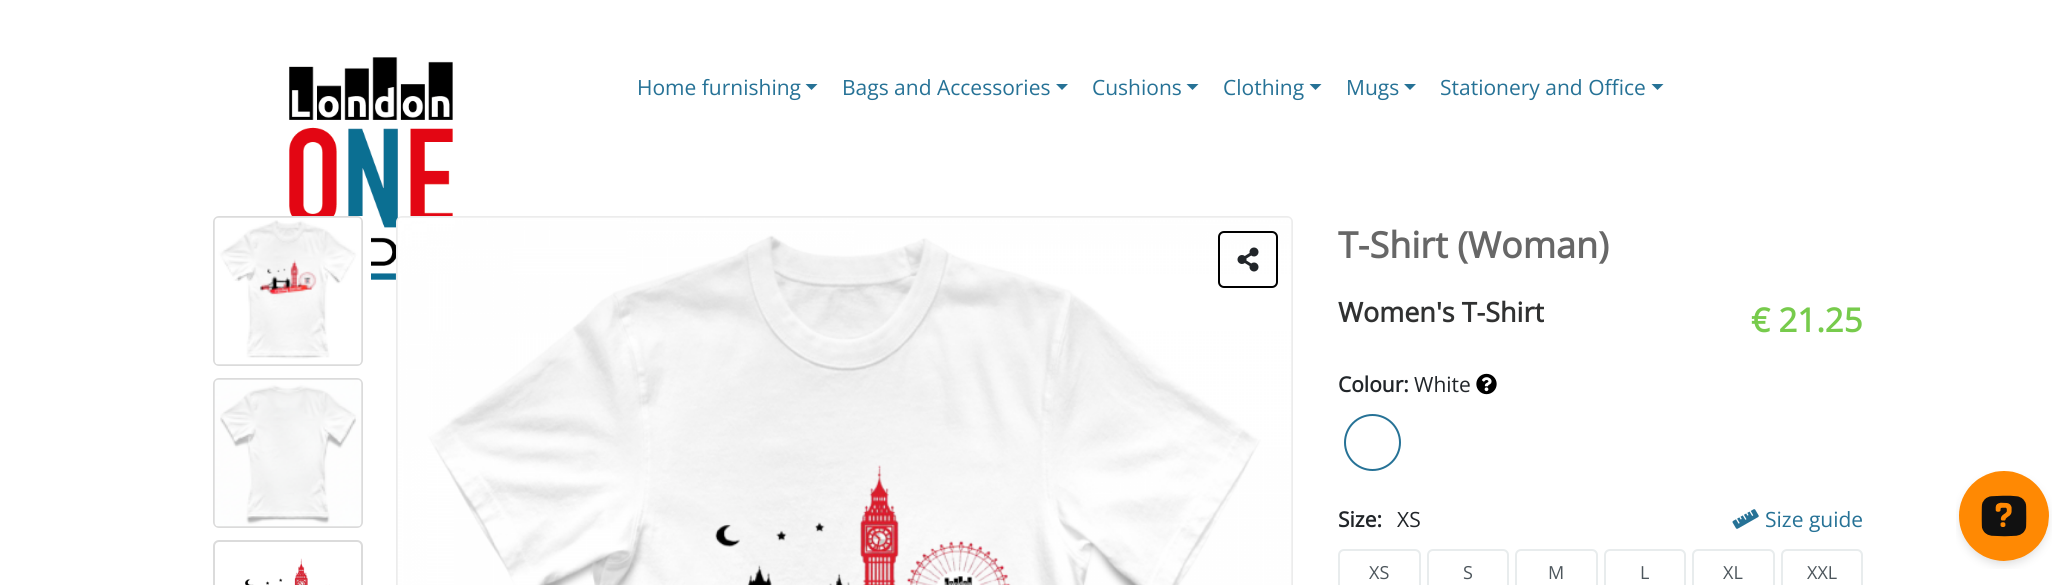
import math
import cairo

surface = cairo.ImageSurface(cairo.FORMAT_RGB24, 2061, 585)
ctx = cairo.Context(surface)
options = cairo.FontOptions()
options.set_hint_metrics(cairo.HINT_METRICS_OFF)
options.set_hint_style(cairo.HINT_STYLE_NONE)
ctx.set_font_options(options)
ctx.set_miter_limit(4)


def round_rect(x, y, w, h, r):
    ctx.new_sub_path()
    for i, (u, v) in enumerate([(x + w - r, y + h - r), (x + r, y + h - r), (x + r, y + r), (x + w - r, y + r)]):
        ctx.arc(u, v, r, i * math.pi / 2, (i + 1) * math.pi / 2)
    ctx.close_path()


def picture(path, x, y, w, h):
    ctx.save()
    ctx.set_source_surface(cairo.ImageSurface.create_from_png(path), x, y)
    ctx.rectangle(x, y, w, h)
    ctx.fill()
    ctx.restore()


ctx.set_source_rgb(1, 1, 1)
ctx.paint()
picture("img1.png", 289, 57, 164, 223)
ctx.select_font_face("Open Sans")
ctx.set_font_size(21)
ctx.set_source_rgb(0.149, 0.447, 0.588)
ctx.move_to(637, 95)
ctx.show_text("Home furnishing")
ctx.new_path()
ctx.move_to(805.5, 84)
ctx.line_to(817.5, 84)
ctx.line_to(811.5, 90)
ctx.close_path()
ctx.fill()
ctx.move_to(842, 95)
ctx.show_text("Bags and Accessories")
ctx.new_path()
ctx.move_to(1056, 84)
ctx.line_to(1068, 84)
ctx.line_to(1062, 90)
ctx.close_path()
ctx.fill()
ctx.move_to(1092, 95)
ctx.show_text("Cushions")
ctx.new_path()
ctx.move_to(1186.5, 84)
ctx.line_to(1198.5, 84)
ctx.line_to(1192.5, 90)
ctx.close_path()
ctx.fill()
ctx.move_to(1223, 95)
ctx.show_text("Clothing")
ctx.new_path()
ctx.move_to(1309.5, 84)
ctx.line_to(1321.5, 84)
ctx.line_to(1315.5, 90)
ctx.close_path()
ctx.fill()
ctx.move_to(1346, 95)
ctx.show_text("Mugs")
ctx.new_path()
ctx.move_to(1404, 84)
ctx.line_to(1416, 84)
ctx.line_to(1410, 90)
ctx.close_path()
ctx.fill()
ctx.move_to(1440, 95)
ctx.show_text("Stationery and Office")
ctx.new_path()
ctx.move_to(1651.5, 84)
ctx.line_to(1663.5, 84)
ctx.line_to(1657.5, 90)
ctx.close_path()
ctx.fill()
ctx.set_source_rgb(1, 1, 1)
ctx.rectangle(289, 216, 82, 64)
ctx.fill()
round_rect(214, 217, 148, 148, 5)
ctx.set_source_rgb(0.859, 0.859, 0.859)
ctx.stroke()
picture("img2.png", 214, 217, 148, 148)
round_rect(214, 379, 148, 148, 5)
ctx.stroke()
picture("img3.png", 214, 379, 148, 148)
round_rect(214, 541, 148, 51, 5)
ctx.stroke()
picture("img4.png", 245, 558, 85, 27)
round_rect(397, 217, 895, 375, 5)
ctx.set_source_rgb(0.925, 0.925, 0.925)
ctx.stroke()
picture("img5.png", 397, 217, 895, 368)
round_rect(1219, 232, 58, 55, 5)
ctx.set_source_rgb(0, 0, 0)
ctx.stroke()
picture("img6.png", 1237, 247, 22, 25)
ctx.select_font_face("Open Sans", cairo.FONT_SLANT_NORMAL, cairo.FONT_WEIGHT_BOLD)
ctx.set_font_size(36)
ctx.set_source_rgb(0.404, 0.404, 0.404)
ctx.move_to(1338, 258)
ctx.show_text("T-Shirt (Woman)")
ctx.set_font_size(27)
ctx.set_source_rgb(0.188, 0.192, 0.192)
ctx.move_to(1338, 322)
ctx.show_text("Women's T-Shirt")
ctx.set_font_size(33)
ctx.set_source_rgb(0.467, 0.796, 0.298)
ctx.move_to(1751, 332)
ctx.show_text("€ 21.25")
ctx.set_font_size(21)
ctx.set_source_rgb(0.129, 0.145, 0.161)
ctx.move_to(1338, 392)
ctx.show_text("Colour:")
ctx.select_font_face("Open Sans")
ctx.move_to(1414, 392)
ctx.show_text("White")
picture("img7.png", 1476, 373, 21, 22)
ctx.arc(1372.5, 442.5, 27.5, 0, 2 * math.pi)
ctx.set_source_rgb(0.149, 0.447, 0.588)
ctx.stroke()
ctx.select_font_face("Open Sans", cairo.FONT_SLANT_NORMAL, cairo.FONT_WEIGHT_BOLD)
ctx.set_source_rgb(0.129, 0.145, 0.161)
ctx.move_to(1338, 527)
ctx.show_text("Size:")
ctx.select_font_face("Open Sans")
ctx.move_to(1397, 527)
ctx.show_text("XS")
picture("img8.png", 1732, 509, 27, 20)
ctx.set_source_rgb(0.149, 0.447, 0.588)
ctx.move_to(1765, 527)
ctx.show_text("Size guide")
round_rect(1339, 550, 81, 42, 5)
ctx.set_source_rgb(0.91, 0.925, 0.929)
ctx.stroke()
ctx.set_font_size(18)
ctx.set_source_rgb(0.302, 0.337, 0.361)
ctx.move_to(1369, 579)
ctx.show_text("XS")
round_rect(1428, 550, 80, 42, 5)
ctx.set_source_rgb(0.91, 0.925, 0.929)
ctx.stroke()
ctx.set_source_rgb(0.302, 0.337, 0.361)
ctx.move_to(1463, 579)
ctx.show_text("S")
round_rect(1516, 550, 81, 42, 5)
ctx.set_source_rgb(0.91, 0.925, 0.929)
ctx.stroke()
ctx.set_source_rgb(0.302, 0.337, 0.361)
ctx.move_to(1548, 579)
ctx.show_text("M")
round_rect(1605, 550, 80, 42, 5)
ctx.set_source_rgb(0.91, 0.925, 0.929)
ctx.stroke()
ctx.set_source_rgb(0.302, 0.337, 0.361)
ctx.move_to(1640, 579)
ctx.show_text("L")
round_rect(1693, 550, 81, 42, 5)
ctx.set_source_rgb(0.91, 0.925, 0.929)
ctx.stroke()
ctx.set_source_rgb(0.302, 0.337, 0.361)
ctx.move_to(1723, 579)
ctx.show_text("XL")
round_rect(1782, 550, 80, 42, 5)
ctx.set_source_rgb(0.91, 0.925, 0.929)
ctx.stroke()
ctx.set_source_rgb(0.302, 0.337, 0.361)
ctx.move_to(1807, 579)
ctx.show_text("XXL")
picture("img9.png", 1956, 471, 96, 98)
surface.write_to_png("page.png")
